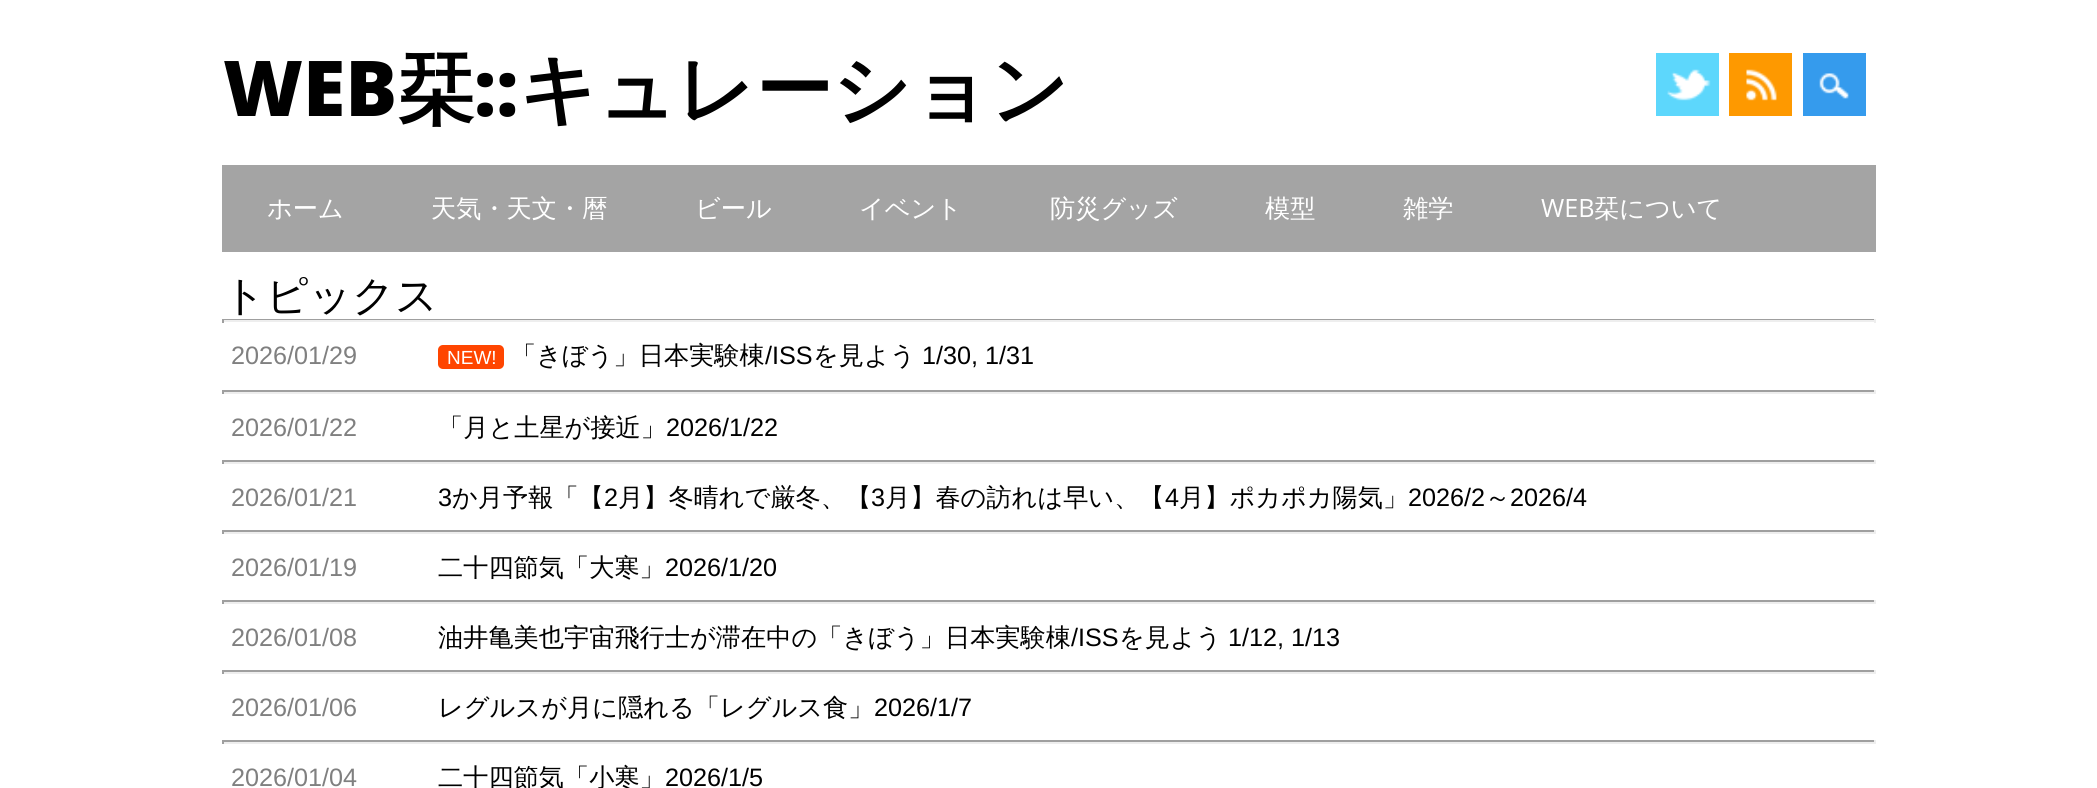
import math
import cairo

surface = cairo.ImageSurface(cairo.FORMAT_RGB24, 2097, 788)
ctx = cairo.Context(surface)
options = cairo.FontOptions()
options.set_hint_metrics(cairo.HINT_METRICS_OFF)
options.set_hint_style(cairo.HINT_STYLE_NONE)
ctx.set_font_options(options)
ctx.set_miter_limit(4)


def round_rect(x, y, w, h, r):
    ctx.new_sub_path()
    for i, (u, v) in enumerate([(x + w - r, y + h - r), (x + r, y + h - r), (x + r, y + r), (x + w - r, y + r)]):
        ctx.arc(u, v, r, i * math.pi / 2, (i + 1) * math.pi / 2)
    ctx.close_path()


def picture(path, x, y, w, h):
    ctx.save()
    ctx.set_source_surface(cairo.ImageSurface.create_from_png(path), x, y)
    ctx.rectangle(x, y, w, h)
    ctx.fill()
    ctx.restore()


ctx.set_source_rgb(1, 1, 1)
ctx.paint()
ctx.select_font_face("Open Sans ExtraBold")
ctx.set_font_size(77)
ctx.set_source_rgb(0, 0, 0)
ctx.move_to(223, 116)
ctx.show_text("WEB")
ctx.select_font_face("WenQuanYi Zen Hei", cairo.FONT_SLANT_NORMAL, cairo.FONT_WEIGHT_BOLD)
ctx.move_to(397, 116)
ctx.show_text("栞")
ctx.select_font_face("Open Sans ExtraBold")
ctx.move_to(474, 116)
ctx.show_text("::")
ctx.select_font_face("WenQuanYi Zen Hei", cairo.FONT_SLANT_NORMAL, cairo.FONT_WEIGHT_BOLD)
ctx.move_to(519, 116)
ctx.show_text("キュレーション")
ctx.set_source_rgb(0.365, 0.843, 0.988)
ctx.rectangle(1656, 53, 63, 63)
ctx.fill()
picture("img1.png", 1667, 69, 44, 32)
ctx.set_source_rgb(0.996, 0.6, 0)
ctx.rectangle(1729, 53, 63, 63)
ctx.fill()
picture("img2.png", 1746, 69, 31, 32)
ctx.set_source_rgb(0.208, 0.608, 0.929)
ctx.rectangle(1803, 53, 63, 63)
ctx.fill()
picture("img3.png", 1819, 73, 30, 26)
ctx.set_source_rgb(0.643, 0.643, 0.643)
ctx.rectangle(222, 165, 1654, 87)
ctx.fill()
ctx.select_font_face("WenQuanYi Zen Hei Medium")
ctx.set_font_size(25.2)
ctx.set_source_rgb(1, 1, 1)
ctx.move_to(267, 217)
ctx.show_text("ホーム")
ctx.move_to(431, 217)
ctx.show_text("天気・天文・暦")
ctx.move_to(695, 217)
ctx.show_text("ビール")
ctx.move_to(859, 217)
ctx.show_text("イベント")
ctx.move_to(1050, 217)
ctx.show_text("防災グッズ")
ctx.move_to(1265, 217)
ctx.show_text("模型")
ctx.move_to(1403, 217)
ctx.show_text("雑学")
ctx.select_font_face("Open Sans")
ctx.move_to(1541, 217)
ctx.show_text("WEB")
ctx.select_font_face("WenQuanYi Zen Hei Medium")
ctx.move_to(1594, 217)
ctx.show_text("栞について")
ctx.set_font_size(42)
ctx.set_source_rgb(0, 0, 0)
ctx.move_to(223, 310)
ctx.show_text("トピックス")
ctx.set_source_rgb(0.624, 0.624, 0.624)
ctx.rectangle(222, 319, 1654, 1)
ctx.fill()
ctx.set_source_rgb(0.933, 0.933, 0.933)
ctx.rectangle(1874, 319, 2, 4)
ctx.fill()
ctx.rectangle(222, 320, 1654, 2)
ctx.fill()
ctx.set_source_rgb(0.624, 0.624, 0.624)
ctx.rectangle(222, 319, 2, 4)
ctx.fill()
ctx.select_font_face("Liberation Sans")
ctx.set_font_size(25.2)
ctx.set_source_rgb(0.502, 0.502, 0.502)
ctx.move_to(231, 364)
ctx.show_text("2026/01/29")
ctx.set_source_rgb(1, 0.271, 0)
round_rect(438, 345, 66, 24, 5)
ctx.fill()
ctx.set_font_size(19)
ctx.set_source_rgb(1, 1, 1)
ctx.move_to(447, 364)
ctx.show_text("NEW!")
ctx.select_font_face("WenQuanYi Zen Hei Medium")
ctx.set_font_size(25.2)
ctx.set_source_rgb(0, 0, 0)
ctx.move_to(511, 364)
ctx.show_text("「きぼう」日本実験棟")
ctx.select_font_face("Liberation Sans")
ctx.move_to(765, 364)
ctx.show_text("/ISS")
ctx.select_font_face("WenQuanYi Zen Hei Medium")
ctx.move_to(813, 364)
ctx.show_text("を見よう")
ctx.select_font_face("Liberation Sans")
ctx.move_to(922, 364)
ctx.show_text("1/30, 1/31")
ctx.set_source_rgb(0.624, 0.624, 0.624)
ctx.rectangle(222, 390, 1654, 2)
ctx.fill()
ctx.set_source_rgb(0.933, 0.933, 0.933)
ctx.rectangle(1874, 390, 2, 4)
ctx.fill()
ctx.rectangle(222, 392, 1654, 2)
ctx.fill()
ctx.set_source_rgb(0.624, 0.624, 0.624)
ctx.rectangle(222, 390, 2, 4)
ctx.fill()
ctx.set_source_rgb(0.502, 0.502, 0.502)
ctx.move_to(231, 436)
ctx.show_text("2026/01/22")
ctx.select_font_face("WenQuanYi Zen Hei Medium")
ctx.set_source_rgb(0, 0, 0)
ctx.move_to(438, 436)
ctx.show_text("「月と土星が接近」")
ctx.select_font_face("Liberation Sans")
ctx.move_to(666, 436)
ctx.show_text("2026/1/22")
ctx.set_source_rgb(0.624, 0.624, 0.624)
ctx.rectangle(222, 460, 1654, 2)
ctx.fill()
ctx.set_source_rgb(0.933, 0.933, 0.933)
ctx.rectangle(1874, 460, 2, 4)
ctx.fill()
ctx.rectangle(222, 462, 1654, 2)
ctx.fill()
ctx.set_source_rgb(0.624, 0.624, 0.624)
ctx.rectangle(222, 460, 2, 4)
ctx.fill()
ctx.set_source_rgb(0.502, 0.502, 0.502)
ctx.move_to(231, 506)
ctx.show_text("2026/01/21")
ctx.set_source_rgb(0, 0, 0)
ctx.move_to(438, 506)
ctx.show_text("3")
ctx.select_font_face("WenQuanYi Zen Hei Medium")
ctx.move_to(452, 506)
ctx.show_text("か月予報「【")
ctx.select_font_face("Liberation Sans")
ctx.move_to(604, 506)
ctx.show_text("2")
ctx.select_font_face("WenQuanYi Zen Hei Medium")
ctx.move_to(618, 506)
ctx.show_text("月】冬晴れで厳冬、【")
ctx.select_font_face("Liberation Sans")
ctx.move_to(871, 506)
ctx.show_text("3")
ctx.select_font_face("WenQuanYi Zen Hei Medium")
ctx.move_to(885, 506)
ctx.show_text("月】春の訪れは早い、【")
ctx.select_font_face("Liberation Sans")
ctx.move_to(1165, 506)
ctx.show_text("4")
ctx.select_font_face("WenQuanYi Zen Hei Medium")
ctx.move_to(1179, 506)
ctx.show_text("月】ポカポカ陽気」")
ctx.select_font_face("Liberation Sans")
ctx.move_to(1408, 506)
ctx.show_text("2026/2")
ctx.select_font_face("WenQuanYi Zen Hei Medium")
ctx.move_to(1485, 506)
ctx.show_text("～")
ctx.select_font_face("Liberation Sans")
ctx.move_to(1510, 506)
ctx.show_text("2026/4")
ctx.set_source_rgb(0.624, 0.624, 0.624)
ctx.rectangle(222, 530, 1654, 2)
ctx.fill()
ctx.set_source_rgb(0.933, 0.933, 0.933)
ctx.rectangle(1874, 530, 2, 4)
ctx.fill()
ctx.rectangle(222, 532, 1654, 2)
ctx.fill()
ctx.set_source_rgb(0.624, 0.624, 0.624)
ctx.rectangle(222, 530, 2, 4)
ctx.fill()
ctx.set_source_rgb(0.502, 0.502, 0.502)
ctx.move_to(231, 576)
ctx.show_text("2026/01/19")
ctx.select_font_face("WenQuanYi Zen Hei Medium")
ctx.set_source_rgb(0, 0, 0)
ctx.move_to(438, 576)
ctx.show_text("二十四節気「大寒」")
ctx.select_font_face("Liberation Sans")
ctx.move_to(665, 576)
ctx.show_text("2026/1/20")
ctx.set_source_rgb(0.624, 0.624, 0.624)
ctx.rectangle(222, 600, 1654, 2)
ctx.fill()
ctx.set_source_rgb(0.933, 0.933, 0.933)
ctx.rectangle(1874, 600, 2, 4)
ctx.fill()
ctx.rectangle(222, 602, 1654, 2)
ctx.fill()
ctx.set_source_rgb(0.624, 0.624, 0.624)
ctx.rectangle(222, 600, 2, 4)
ctx.fill()
ctx.set_source_rgb(0.502, 0.502, 0.502)
ctx.move_to(231, 646)
ctx.show_text("2026/01/08")
ctx.select_font_face("WenQuanYi Zen Hei Medium")
ctx.set_source_rgb(0, 0, 0)
ctx.move_to(438, 646)
ctx.show_text("油井亀美也宇宙飛行士が滞在中の「きぼう」日本実験棟")
ctx.select_font_face("Liberation Sans")
ctx.move_to(1071, 646)
ctx.show_text("/ISS")
ctx.select_font_face("WenQuanYi Zen Hei Medium")
ctx.move_to(1119, 646)
ctx.show_text("を見よう")
ctx.select_font_face("Liberation Sans")
ctx.move_to(1228, 646)
ctx.show_text("1/12, 1/13")
ctx.set_source_rgb(0.624, 0.624, 0.624)
ctx.rectangle(222, 670, 1654, 2)
ctx.fill()
ctx.set_source_rgb(0.933, 0.933, 0.933)
ctx.rectangle(1874, 670, 2, 4)
ctx.fill()
ctx.rectangle(222, 672, 1654, 2)
ctx.fill()
ctx.set_source_rgb(0.624, 0.624, 0.624)
ctx.rectangle(222, 670, 2, 4)
ctx.fill()
ctx.set_source_rgb(0.502, 0.502, 0.502)
ctx.move_to(231, 716)
ctx.show_text("2026/01/06")
ctx.select_font_face("WenQuanYi Zen Hei Medium")
ctx.set_source_rgb(0, 0, 0)
ctx.move_to(438, 716)
ctx.show_text("レグルスが月に隠れる「レグルス食」")
ctx.select_font_face("Liberation Sans")
ctx.move_to(874, 716)
ctx.show_text("2026/1/7")
ctx.set_source_rgb(0.624, 0.624, 0.624)
ctx.rectangle(222, 740, 1654, 2)
ctx.fill()
ctx.set_source_rgb(0.933, 0.933, 0.933)
ctx.rectangle(1874, 740, 2, 4)
ctx.fill()
ctx.rectangle(222, 742, 1654, 2)
ctx.fill()
ctx.set_source_rgb(0.624, 0.624, 0.624)
ctx.rectangle(222, 740, 2, 4)
ctx.fill()
ctx.set_source_rgb(0.502, 0.502, 0.502)
ctx.move_to(231, 786)
ctx.show_text("2026/01/04")
ctx.select_font_face("WenQuanYi Zen Hei Medium")
ctx.set_source_rgb(0, 0, 0)
ctx.move_to(438, 786)
ctx.show_text("二十四節気「小寒」")
ctx.select_font_face("Liberation Sans")
ctx.move_to(665, 786)
ctx.show_text("2026/1/5")
surface.write_to_png("page.png")
